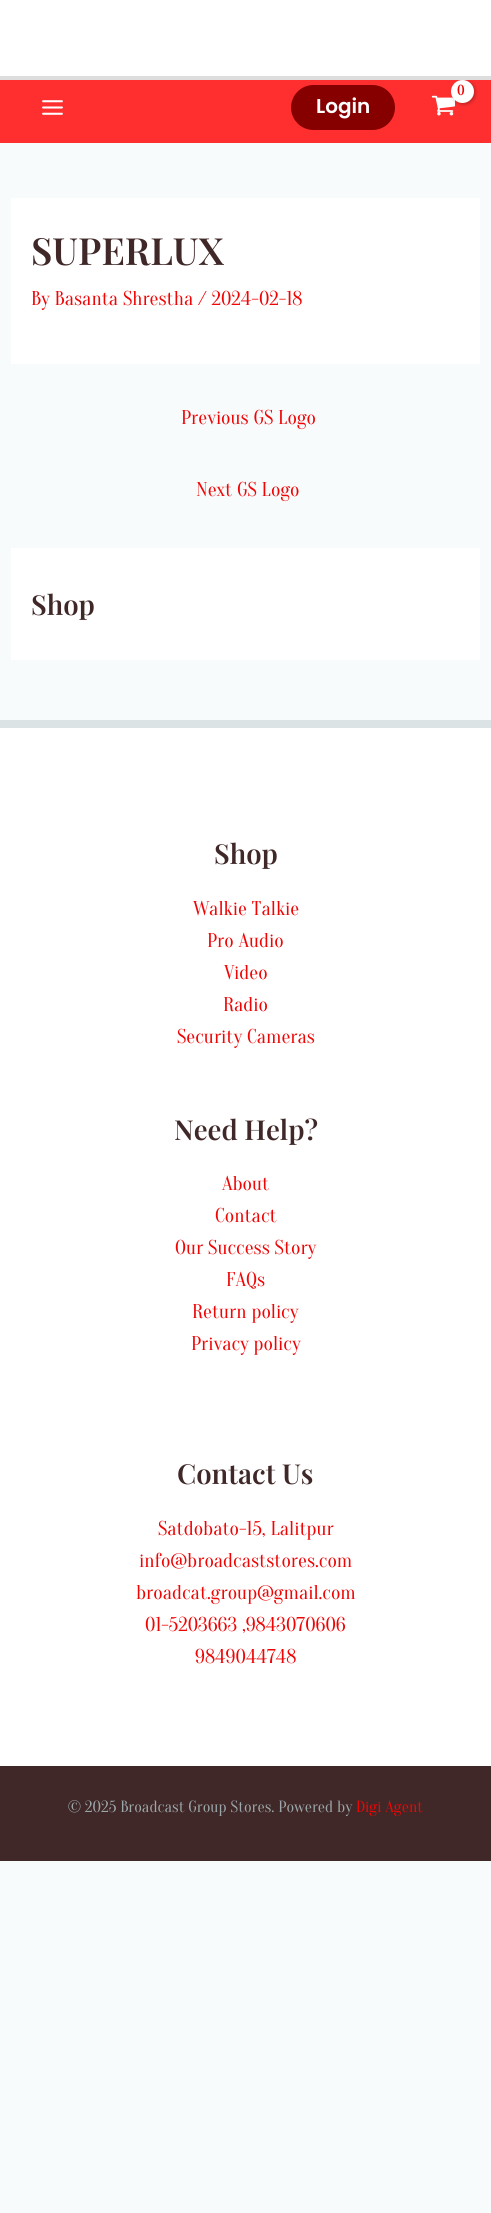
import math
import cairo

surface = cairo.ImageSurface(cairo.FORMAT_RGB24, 491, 2213)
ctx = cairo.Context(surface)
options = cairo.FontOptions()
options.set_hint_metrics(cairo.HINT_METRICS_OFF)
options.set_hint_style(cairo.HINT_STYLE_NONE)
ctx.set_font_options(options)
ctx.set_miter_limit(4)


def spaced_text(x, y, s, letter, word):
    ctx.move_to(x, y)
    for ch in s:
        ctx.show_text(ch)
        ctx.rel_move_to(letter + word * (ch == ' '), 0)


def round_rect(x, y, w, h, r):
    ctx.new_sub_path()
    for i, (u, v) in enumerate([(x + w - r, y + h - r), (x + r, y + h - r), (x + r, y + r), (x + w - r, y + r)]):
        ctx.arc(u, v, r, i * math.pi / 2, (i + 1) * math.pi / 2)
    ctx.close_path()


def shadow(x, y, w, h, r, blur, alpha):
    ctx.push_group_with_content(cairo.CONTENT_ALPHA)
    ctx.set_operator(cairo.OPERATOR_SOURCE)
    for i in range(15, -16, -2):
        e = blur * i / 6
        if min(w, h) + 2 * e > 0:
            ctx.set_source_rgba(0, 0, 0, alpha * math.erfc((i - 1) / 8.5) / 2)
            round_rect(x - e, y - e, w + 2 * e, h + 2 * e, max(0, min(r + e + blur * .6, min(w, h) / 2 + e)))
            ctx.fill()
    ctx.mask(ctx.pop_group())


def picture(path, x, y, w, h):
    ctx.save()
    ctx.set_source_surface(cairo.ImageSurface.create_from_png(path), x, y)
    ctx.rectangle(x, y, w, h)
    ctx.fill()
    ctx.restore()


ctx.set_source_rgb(0.969, 0.984, 0.988)
ctx.paint()
ctx.set_source_rgb(1, 0.184, 0.184)
ctx.rectangle(0, 80, 491, 63)
ctx.fill()
picture("img2.png", 431, 95, 24, 21)
ctx.set_source_rgb(0, 0, 0)
shadow(453, 81, 22, 23, 11, 2, 0.3)
ctx.set_source_rgb(1, 1, 1)
ctx.rectangle(0, 0, 491, 76)
ctx.fill()
ctx.set_source_rgb(0.867, 0.867, 0.867)
ctx.rectangle(0, 76, 491, 4)
ctx.fill()
picture("img1.png", 42, 100, 21, 15)
ctx.set_source_rgb(1, 1, 1)
ctx.arc(462.5, 91.5, 11.5, 0, 2 * math.pi)
ctx.fill()
ctx.select_font_face("Oranienbaum", cairo.FONT_SLANT_NORMAL, cairo.FONT_WEIGHT_BOLD)
ctx.set_font_size(14)
ctx.set_source_rgb(0.941, 0.02, 0.02)
spaced_text(457, 95, "0", -1, 0)
ctx.set_source_rgb(0.525, 0, 0)
round_rect(291, 85, 104, 45, 22.5)
ctx.fill()
ctx.select_font_face("Poppins SemiBold")
ctx.set_font_size(20)
ctx.set_source_rgb(1, 1, 1)
ctx.move_to(316, 113)
ctx.show_text("Login")
ctx.rectangle(11, 198, 469, 166)
ctx.fill()
ctx.select_font_face("Playfair Display SemiBold")
ctx.set_font_size(37.5)
ctx.set_source_rgb(0.251, 0.157, 0.157)
ctx.move_to(31, 265)
ctx.show_text("SUPERLUX")
ctx.select_font_face("Oranienbaum")
ctx.set_font_size(20)
ctx.set_source_rgb(0.941, 0.02, 0.02)
ctx.move_to(31, 305)
ctx.show_text("By Basanta Shrestha / 2024-02-18")
ctx.move_to(181, 424)
ctx.show_text("Previous GS Logo")
ctx.move_to(196, 496)
ctx.show_text("Next GS Logo")
ctx.set_source_rgb(1, 1, 1)
ctx.rectangle(11, 548, 469, 112)
ctx.fill()
ctx.select_font_face("Playfair Display SemiBold")
ctx.set_font_size(27.5)
ctx.set_source_rgb(0.251, 0.157, 0.157)
ctx.move_to(31, 615)
ctx.show_text("Shop")
ctx.rectangle(0, 1766, 491, 95)
ctx.fill()
ctx.set_source_rgb(1, 1, 1)
ctx.rectangle(0, 728, 491, 1038)
ctx.fill()
ctx.set_source_rgb(0.863, 0.89, 0.898)
ctx.rectangle(0, 720, 491, 8)
ctx.fill()
ctx.set_source_rgb(0.251, 0.157, 0.157)
ctx.move_to(214, 864)
ctx.show_text("Shop")
ctx.select_font_face("Oranienbaum")
ctx.set_font_size(20)
ctx.set_source_rgb(0.941, 0.02, 0.02)
ctx.move_to(193, 915)
ctx.show_text("Walkie Talkie")
ctx.move_to(207, 947)
ctx.show_text("Pro Audio")
ctx.move_to(224, 979)
ctx.show_text("Video")
ctx.move_to(223, 1011)
ctx.show_text("Radio")
ctx.move_to(177, 1043)
ctx.show_text("Security Cameras")
ctx.select_font_face("Playfair Display SemiBold")
ctx.set_font_size(27.5)
ctx.set_source_rgb(0.251, 0.157, 0.157)
ctx.move_to(174, 1140)
ctx.show_text("Need Help?")
ctx.select_font_face("Oranienbaum")
ctx.set_font_size(20)
ctx.set_source_rgb(0.941, 0.02, 0.02)
ctx.move_to(222, 1190)
ctx.show_text("About")
ctx.move_to(215, 1222)
ctx.show_text("Contact")
ctx.move_to(175, 1254)
ctx.show_text("Our Success Story")
ctx.move_to(226, 1286)
ctx.show_text("FAQs")
ctx.move_to(192, 1318)
ctx.show_text("Return policy")
ctx.move_to(191, 1350)
ctx.show_text("Privacy policy")
ctx.select_font_face("Playfair Display SemiBold")
ctx.set_font_size(27.5)
ctx.set_source_rgb(0.251, 0.157, 0.157)
ctx.move_to(177, 1484)
ctx.show_text("Contact Us")
ctx.select_font_face("Oranienbaum")
ctx.set_font_size(20)
ctx.set_source_rgb(0.941, 0.02, 0.02)
ctx.move_to(158, 1535)
ctx.show_text("Satdobato-15, Lalitpur")
ctx.move_to(139, 1567)
ctx.show_text("info@broadcaststores.com")
ctx.move_to(136, 1599)
ctx.show_text("broadcat.group@gmail.com")
ctx.move_to(145, 1631)
ctx.show_text("01-5203663 ,9843070606")
ctx.move_to(195, 1663)
ctx.show_text("9849044748")
ctx.set_font_size(16.25)
ctx.set_source_rgb(0.612, 0.655, 0.671)
ctx.move_to(68, 1812)
ctx.show_text("© 2025 Broadcast Group Stores. Powered by")
ctx.set_source_rgb(0.941, 0.02, 0.02)
ctx.move_to(356, 1812)
ctx.show_text("Digi Agent")
surface.write_to_png("page.png")
